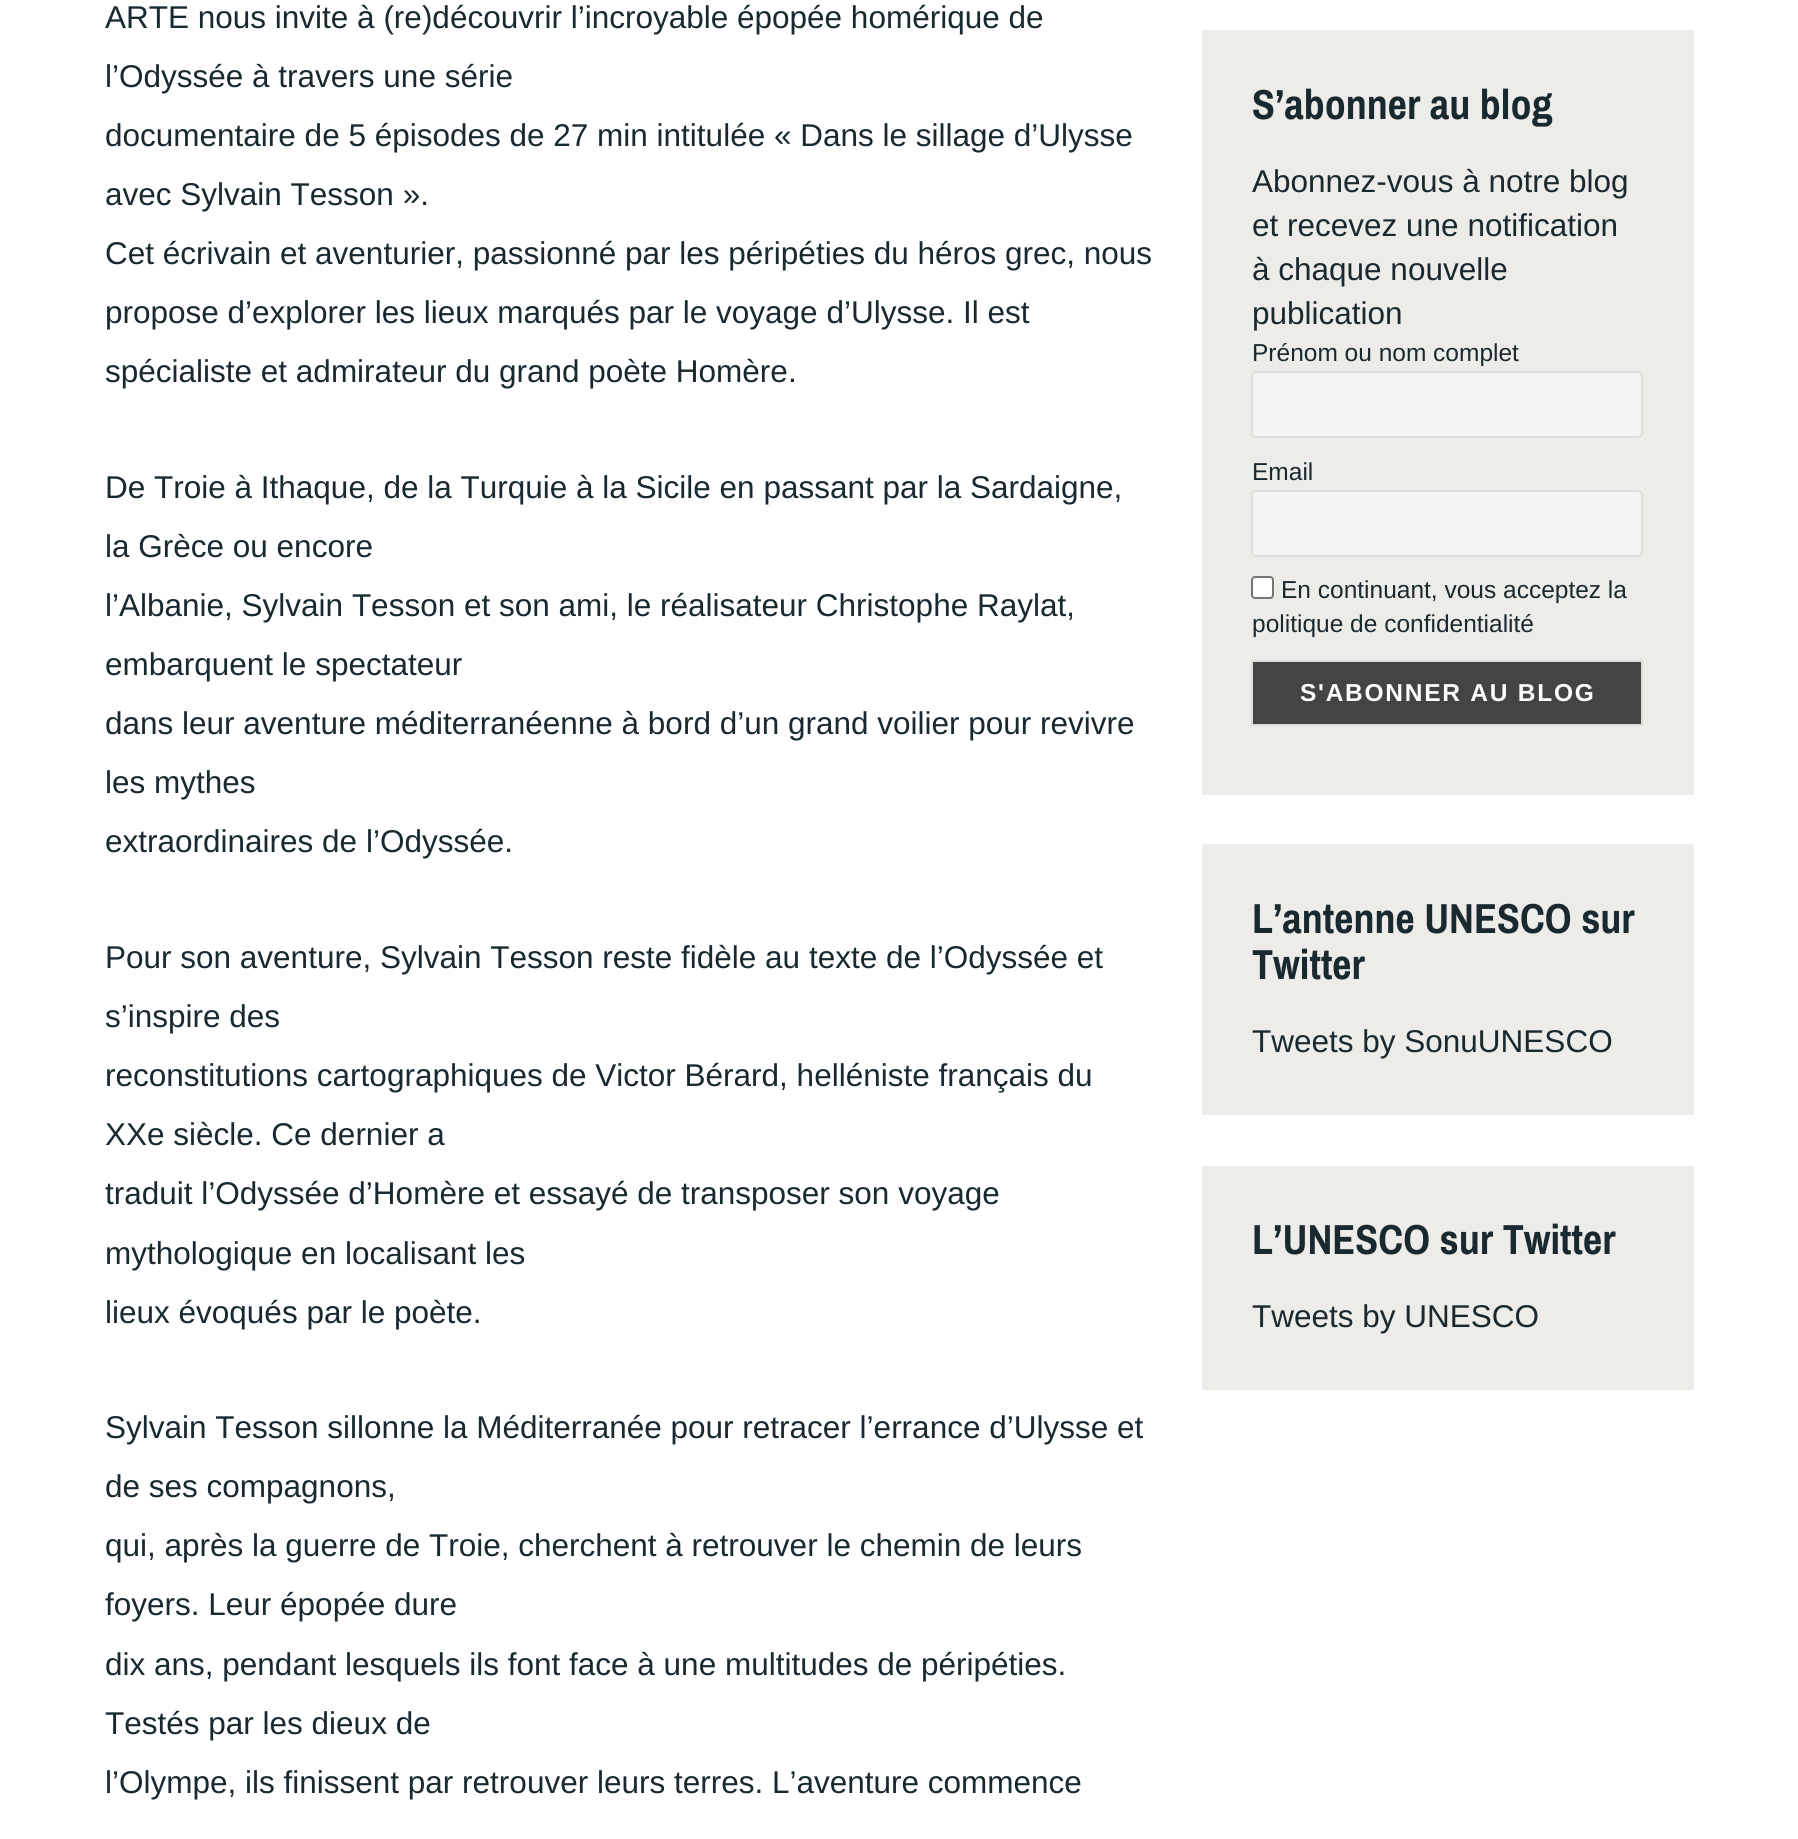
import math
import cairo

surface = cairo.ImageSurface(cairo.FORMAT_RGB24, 1798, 1839)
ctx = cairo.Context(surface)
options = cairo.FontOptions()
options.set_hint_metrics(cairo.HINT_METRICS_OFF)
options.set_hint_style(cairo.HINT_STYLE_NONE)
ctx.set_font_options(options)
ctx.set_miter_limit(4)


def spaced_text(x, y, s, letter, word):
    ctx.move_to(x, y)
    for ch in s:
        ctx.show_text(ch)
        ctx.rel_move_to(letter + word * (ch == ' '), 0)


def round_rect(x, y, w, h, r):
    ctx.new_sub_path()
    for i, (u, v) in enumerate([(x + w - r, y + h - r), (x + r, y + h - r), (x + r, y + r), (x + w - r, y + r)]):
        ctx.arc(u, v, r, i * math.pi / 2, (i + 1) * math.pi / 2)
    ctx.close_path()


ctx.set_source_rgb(1, 1, 1)
ctx.paint()
ctx.select_font_face("Liberation Sans")
ctx.set_font_size(31.5)
ctx.set_source_rgb(0.098, 0.161, 0.188)
ctx.move_to(105, 28)
ctx.show_text("ARTE nous invite à (re)découvrir l’incroyable épopée homérique de")
ctx.move_to(105, 87)
ctx.show_text("l’Odyssée à travers une série")
ctx.move_to(105, 146)
ctx.show_text("documentaire de 5 épisodes de 27 min intitulée « Dans le sillage d’Ulysse")
ctx.move_to(105, 205)
ctx.show_text("avec Sylvain Tesson ».")
ctx.move_to(105, 264)
ctx.show_text("Cet écrivain et aventurier, passionné par les péripéties du héros grec, nous")
ctx.move_to(105, 323)
ctx.show_text("propose d’explorer les lieux marqués par le voyage d’Ulysse. Il est")
ctx.move_to(105, 382)
ctx.show_text("spécialiste et admirateur du grand poète Homère.")
ctx.move_to(105, 498)
ctx.show_text("De Troie à Ithaque, de la Turquie à la Sicile en passant par la Sardaigne,")
ctx.move_to(105, 557)
ctx.show_text("la Grèce ou encore")
ctx.move_to(105, 616)
ctx.show_text("l’Albanie, Sylvain Tesson et son ami, le réalisateur Christophe Raylat,")
ctx.move_to(105, 675)
ctx.show_text("embarquent le spectateur")
ctx.move_to(105, 734)
ctx.show_text("dans leur aventure méditerranéenne à bord d’un grand voilier pour revivre")
ctx.move_to(105, 793)
ctx.show_text("les mythes")
ctx.move_to(105, 852)
ctx.show_text("extraordinaires de l’Odyssée.")
ctx.move_to(105, 968)
ctx.show_text("Pour son aventure, Sylvain Tesson reste fidèle au texte de l’Odyssée et")
ctx.move_to(105, 1027)
ctx.show_text("s’inspire des")
ctx.move_to(105, 1086)
ctx.show_text("reconstitutions cartographiques de Victor Bérard, helléniste français du")
ctx.move_to(105, 1145)
ctx.show_text("XXe siècle. Ce dernier a")
ctx.move_to(105, 1204)
ctx.show_text("traduit l’Odyssée d’Homère et essayé de transposer son voyage")
ctx.move_to(105, 1264)
ctx.show_text("mythologique en localisant les")
ctx.move_to(105, 1323)
ctx.show_text("lieux évoqués par le poète.")
ctx.move_to(105, 1438)
ctx.show_text("Sylvain Tesson sillonne la Méditerranée pour retracer l’errance d’Ulysse et")
ctx.move_to(105, 1497)
ctx.show_text("de ses compagnons,")
ctx.move_to(105, 1556)
ctx.show_text("qui, après la guerre de Troie, cherchent à retrouver le chemin de leurs")
ctx.move_to(105, 1615)
ctx.show_text("foyers. Leur épopée dure")
ctx.move_to(105, 1675)
ctx.show_text("dix ans, pendant lesquels ils font face à une multitudes de péripéties.")
ctx.move_to(105, 1734)
ctx.show_text("Testés par les dieux de")
ctx.move_to(105, 1793)
ctx.show_text("l’Olympe, ils finissent par retrouver leurs terres. L’aventure commence")
ctx.set_source_rgb(0.933, 0.925, 0.91)
ctx.rectangle(1202, 30, 492, 765)
ctx.fill()
ctx.select_font_face("Archivo Narrow", cairo.FONT_SLANT_NORMAL, cairo.FONT_WEIGHT_BOLD)
ctx.set_font_size(42)
ctx.set_source_rgb(0.098, 0.161, 0.188)
ctx.move_to(1252, 119)
ctx.show_text("S’abonner au blog")
ctx.select_font_face("Liberation Sans")
ctx.set_font_size(31.5)
ctx.move_to(1252, 192)
ctx.show_text("Abonnez-vous à notre blog")
ctx.move_to(1252, 236)
ctx.show_text("et recevez une notification")
ctx.move_to(1252, 280)
ctx.show_text("à chaque nouvelle")
ctx.move_to(1252, 324)
ctx.show_text("publication")
ctx.set_font_size(24.5)
ctx.move_to(1252, 361)
ctx.show_text("Prénom ou nom complet")
ctx.set_source_rgb(0.957, 0.957, 0.957)
round_rect(1252, 372, 390, 65, 4)
ctx.fill_preserve()
ctx.set_source_rgb(0.867, 0.867, 0.867)
ctx.stroke()
ctx.set_source_rgb(0.098, 0.161, 0.188)
ctx.move_to(1252, 480)
ctx.show_text("Email")
ctx.set_source_rgb(0.957, 0.957, 0.957)
round_rect(1252, 491, 390, 65, 4)
ctx.fill_preserve()
ctx.set_source_rgb(0.867, 0.867, 0.867)
ctx.stroke()
ctx.set_source_rgb(1, 1, 1)
round_rect(1252, 577, 21, 21, 3)
ctx.fill_preserve()
ctx.set_source_rgb(0.463, 0.463, 0.463)
ctx.stroke()
ctx.set_source_rgb(0.098, 0.161, 0.188)
ctx.move_to(1281, 598)
ctx.show_text("En continuant, vous acceptez la")
ctx.move_to(1252, 632)
ctx.show_text("politique de confidentialité")
ctx.set_source_rgb(0.267, 0.267, 0.267)
ctx.rectangle(1252, 661, 390, 64)
ctx.fill_preserve()
ctx.set_source_rgb(0.867, 0.867, 0.867)
ctx.stroke()
ctx.select_font_face("Liberation Sans", cairo.FONT_SLANT_NORMAL, cairo.FONT_WEIGHT_BOLD)
ctx.set_source_rgb(1, 1, 1)
spaced_text(1300, 701, "S'ABONNER AU BLOG", 1.75, 0)
ctx.set_source_rgb(0.933, 0.925, 0.91)
ctx.rectangle(1202, 844, 492, 271)
ctx.fill()
ctx.select_font_face("Archivo Narrow", cairo.FONT_SLANT_NORMAL, cairo.FONT_WEIGHT_BOLD)
ctx.set_font_size(42)
ctx.set_source_rgb(0.098, 0.161, 0.188)
ctx.move_to(1252, 933)
ctx.show_text("L’antenne UNESCO sur")
ctx.move_to(1252, 979)
ctx.show_text("Twitter")
ctx.select_font_face("Liberation Sans")
ctx.set_font_size(31.5)
ctx.move_to(1252, 1052)
ctx.show_text("Tweets by SonuUNESCO")
ctx.set_source_rgb(0.933, 0.925, 0.91)
ctx.rectangle(1202, 1166, 492, 224)
ctx.fill()
ctx.select_font_face("Archivo Narrow", cairo.FONT_SLANT_NORMAL, cairo.FONT_WEIGHT_BOLD)
ctx.set_font_size(42)
ctx.set_source_rgb(0.098, 0.161, 0.188)
ctx.move_to(1252, 1254)
ctx.show_text("L’UNESCO sur Twitter")
ctx.select_font_face("Liberation Sans")
ctx.set_font_size(31.5)
ctx.move_to(1252, 1327)
ctx.show_text("Tweets by UNESCO")
surface.write_to_png("page.png")
